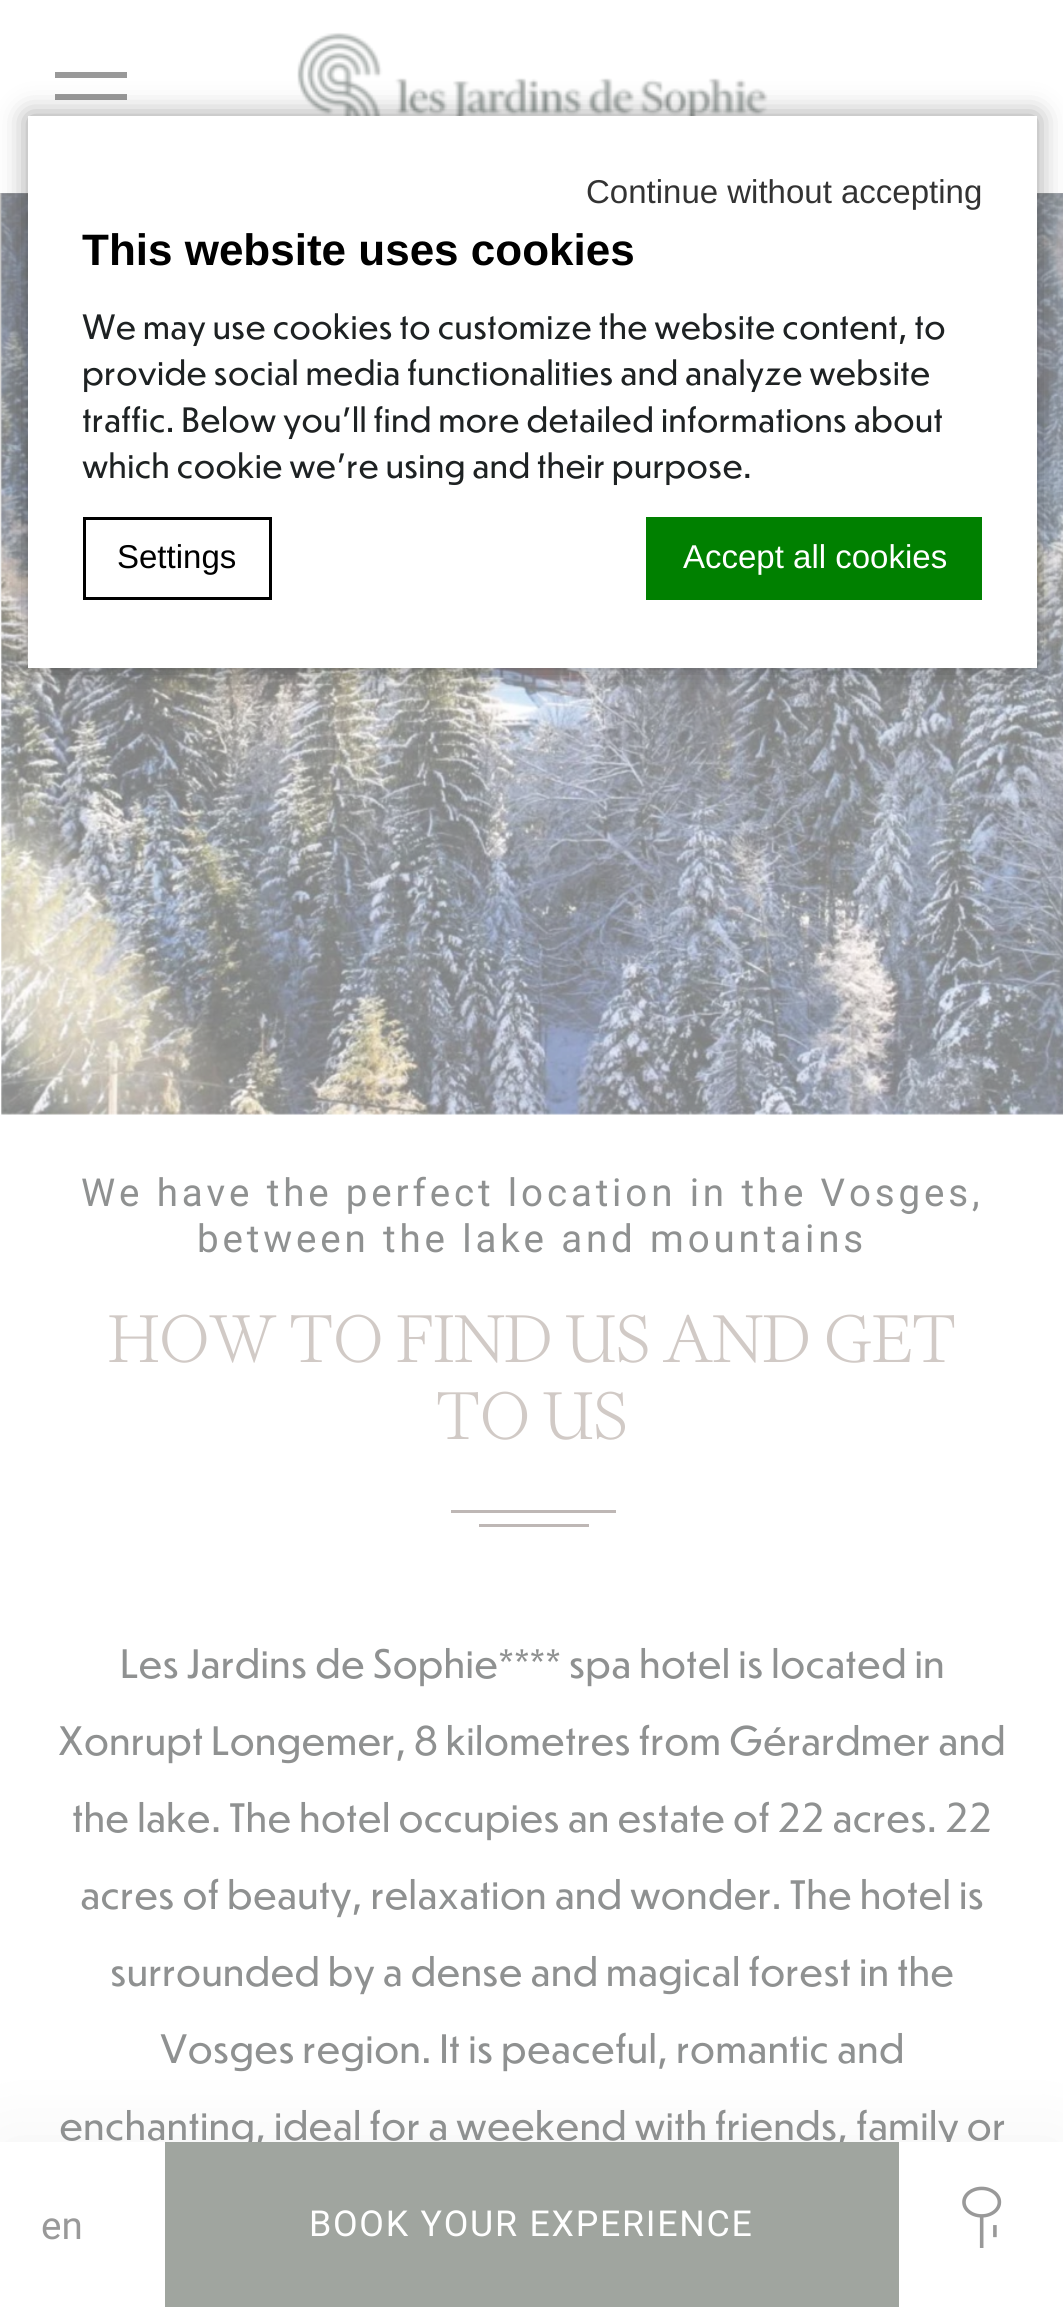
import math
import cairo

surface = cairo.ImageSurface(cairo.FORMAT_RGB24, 1063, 2307)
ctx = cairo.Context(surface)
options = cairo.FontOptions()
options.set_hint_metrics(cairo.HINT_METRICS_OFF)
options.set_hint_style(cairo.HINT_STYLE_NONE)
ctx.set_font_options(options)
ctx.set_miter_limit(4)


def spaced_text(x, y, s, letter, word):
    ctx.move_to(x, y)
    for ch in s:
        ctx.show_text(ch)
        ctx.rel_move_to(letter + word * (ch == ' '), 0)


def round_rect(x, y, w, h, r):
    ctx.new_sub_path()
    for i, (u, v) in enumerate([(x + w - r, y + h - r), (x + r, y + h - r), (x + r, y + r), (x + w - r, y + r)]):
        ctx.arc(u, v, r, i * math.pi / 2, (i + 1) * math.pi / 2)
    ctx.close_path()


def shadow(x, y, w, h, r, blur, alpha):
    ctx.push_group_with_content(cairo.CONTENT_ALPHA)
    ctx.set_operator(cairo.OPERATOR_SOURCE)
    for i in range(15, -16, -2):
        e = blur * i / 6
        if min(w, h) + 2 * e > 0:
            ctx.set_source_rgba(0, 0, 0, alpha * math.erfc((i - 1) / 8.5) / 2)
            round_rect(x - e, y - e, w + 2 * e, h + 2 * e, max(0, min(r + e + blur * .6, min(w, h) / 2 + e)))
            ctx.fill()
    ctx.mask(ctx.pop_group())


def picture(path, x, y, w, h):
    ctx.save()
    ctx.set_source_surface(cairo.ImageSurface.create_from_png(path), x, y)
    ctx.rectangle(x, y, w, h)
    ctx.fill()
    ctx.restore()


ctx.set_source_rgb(1, 1, 1)
ctx.paint()
picture("img2.png", 1, 193, 1062, 922)
gradient = cairo.LinearGradient(532, 192, 532, 655)
gradient.add_color_stop_rgba(0, 0.502, 0.502, 0.502, 0.5)
gradient.add_color_stop_rgba(1, 0.502, 0.502, 0.502, 0)
ctx.set_source(gradient)
ctx.rectangle(0, 193, 1063, 442)
ctx.fill()
ctx.set_source_rgb(0.502, 0.502, 0.502)
shadow(0, 0, 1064, 193, 0, 41, 0.1)
ctx.set_source_rgb(1, 1, 1)
ctx.rectangle(0, 0, 1063, 193)
ctx.fill()
ctx.set_source_rgb(0.6, 0.6, 0.6)
ctx.rectangle(55, 72, 72, 6)
ctx.fill()
ctx.rectangle(55, 94, 72, 6)
ctx.fill()
picture("img1.png", 297, 32, 471, 84)
ctx.set_source_rgb(0, 0, 0)
shadow(28, 116, 1009, 552, 0, 14, 0.4)
ctx.set_source_rgb(1, 1, 1)
ctx.rectangle(28, 116, 1009, 552)
ctx.fill()
ctx.select_font_face("Liberation Sans")
ctx.set_font_size(33)
ctx.set_source_rgb(0.2, 0.2, 0.2)
ctx.move_to(586, 203)
ctx.show_text("Continue without accepting")
ctx.select_font_face("Liberation Sans", cairo.FONT_SLANT_NORMAL, cairo.FONT_WEIGHT_BOLD)
ctx.set_font_size(44)
ctx.set_source_rgb(0, 0, 0)
ctx.move_to(82, 265)
ctx.show_text("This website uses cookies")
ctx.select_font_face("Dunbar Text")
ctx.set_font_size(33)
ctx.set_source_rgb(0.118, 0.133, 0.137)
ctx.move_to(82, 339)
ctx.show_text("We may use cookies to customize the website content, to")
ctx.move_to(82, 385)
ctx.show_text("provide social media functionalities and analyze website")
ctx.move_to(82, 432)
ctx.show_text("traffic. Below you'll find more detailed informations about")
ctx.move_to(82, 478)
ctx.show_text("which cookie we're using and their purpose.")
ctx.rectangle(84.5, 518.5, 186, 80)
ctx.set_source_rgb(0, 0, 0)
ctx.set_line_width(3)
ctx.stroke()
ctx.select_font_face("Liberation Sans")
ctx.move_to(117, 568)
ctx.show_text("Settings")
ctx.set_source_rgb(0, 0.502, 0)
ctx.rectangle(646, 517, 336, 83)
ctx.fill()
ctx.set_source_rgb(1, 1, 1)
ctx.move_to(683, 568)
ctx.show_text("Accept all cookies")
ctx.select_font_face("Roboto")
ctx.set_font_size(38.5)
ctx.set_source_rgb(0.561, 0.569, 0.569)
spaced_text(81, 1206, "We have the perfect location in the Vosges,", 3.85, 0)
spaced_text(197, 1252, "between the lake and mountains", 3.85, 0)
ctx.select_font_face("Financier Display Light")
ctx.set_font_size(77)
ctx.set_source_rgb(0.82, 0.792, 0.776)
ctx.move_to(108, 1362)
ctx.show_text("HOW TO FIND US AND GET")
ctx.move_to(436, 1439)
ctx.show_text("TO US")
ctx.set_source_rgb(0.745, 0.718, 0.71)
ctx.rectangle(451, 1510, 165, 3)
ctx.fill()
ctx.rectangle(479, 1524, 110, 3)
ctx.fill()
ctx.select_font_face("Dunbar Text")
ctx.set_font_size(38.5)
ctx.set_source_rgb(0.561, 0.569, 0.569)
ctx.move_to(120, 1678)
ctx.show_text("Les Jardins de Sophie**** spa hotel is located in")
ctx.move_to(58, 1755)
ctx.show_text("Xonrupt Longemer, 8 kilometres from Gérardmer and")
ctx.move_to(72, 1832)
ctx.show_text("the lake. The hotel occupies an estate of 22 acres. 22")
ctx.move_to(80, 1909)
ctx.show_text("acres of beauty, relaxation and wonder. The hotel is")
ctx.move_to(110, 1986)
ctx.show_text("surrounded by a dense and magical forest in the")
ctx.move_to(160, 2063)
ctx.show_text("Vosges region. It is peaceful, romantic and")
ctx.move_to(59, 2140)
ctx.show_text("enchanting, ideal for a weekend with friends, family or")
ctx.set_source_rgb(0.502, 0.502, 0.502)
shadow(0, 2142, 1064, 165, 0, 41, 0.1)
ctx.set_source_rgb(1, 1, 1)
ctx.rectangle(0, 2142, 1063, 165)
ctx.fill()
ctx.select_font_face("Roboto")
ctx.set_source_rgb(0.6, 0.6, 0.6)
ctx.move_to(41, 2239)
ctx.show_text("en")
ctx.set_source_rgb(0.627, 0.647, 0.624)
ctx.rectangle(165, 2142, 734, 165)
ctx.fill()
ctx.set_font_size(35.75)
ctx.set_source_rgb(1, 1, 1)
spaced_text(309, 2236, "BOOK YOUR EXPERIENCE", 1.75, 0)
ctx.select_font_face("Nuosu SIL")
ctx.set_font_size(69)
ctx.set_source_rgb(0.6, 0.6, 0.6)
ctx.move_to(955, 2248)
ctx.show_text("ꀬ")
surface.write_to_png("page.png")
